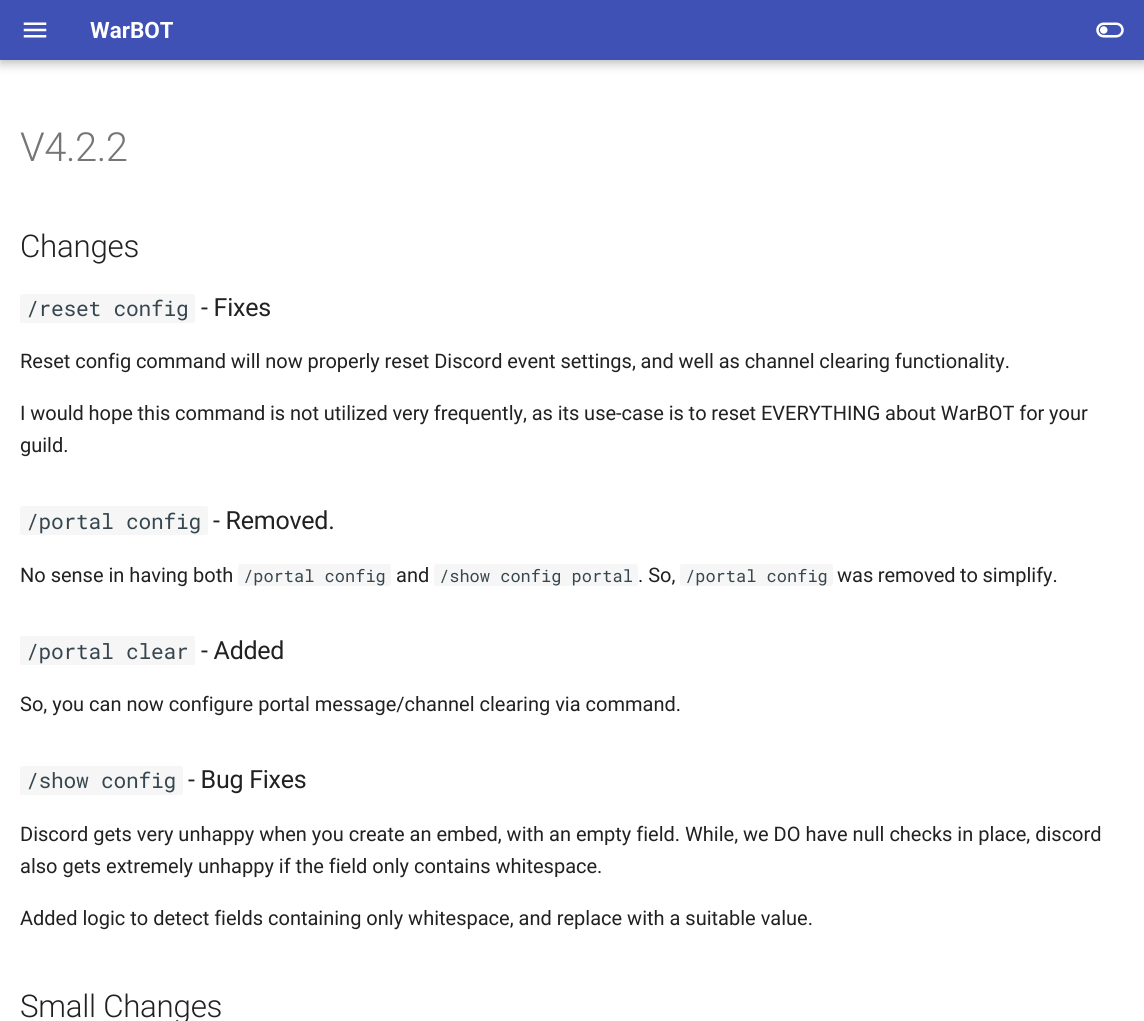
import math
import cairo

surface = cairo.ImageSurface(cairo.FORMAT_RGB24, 1144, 1021)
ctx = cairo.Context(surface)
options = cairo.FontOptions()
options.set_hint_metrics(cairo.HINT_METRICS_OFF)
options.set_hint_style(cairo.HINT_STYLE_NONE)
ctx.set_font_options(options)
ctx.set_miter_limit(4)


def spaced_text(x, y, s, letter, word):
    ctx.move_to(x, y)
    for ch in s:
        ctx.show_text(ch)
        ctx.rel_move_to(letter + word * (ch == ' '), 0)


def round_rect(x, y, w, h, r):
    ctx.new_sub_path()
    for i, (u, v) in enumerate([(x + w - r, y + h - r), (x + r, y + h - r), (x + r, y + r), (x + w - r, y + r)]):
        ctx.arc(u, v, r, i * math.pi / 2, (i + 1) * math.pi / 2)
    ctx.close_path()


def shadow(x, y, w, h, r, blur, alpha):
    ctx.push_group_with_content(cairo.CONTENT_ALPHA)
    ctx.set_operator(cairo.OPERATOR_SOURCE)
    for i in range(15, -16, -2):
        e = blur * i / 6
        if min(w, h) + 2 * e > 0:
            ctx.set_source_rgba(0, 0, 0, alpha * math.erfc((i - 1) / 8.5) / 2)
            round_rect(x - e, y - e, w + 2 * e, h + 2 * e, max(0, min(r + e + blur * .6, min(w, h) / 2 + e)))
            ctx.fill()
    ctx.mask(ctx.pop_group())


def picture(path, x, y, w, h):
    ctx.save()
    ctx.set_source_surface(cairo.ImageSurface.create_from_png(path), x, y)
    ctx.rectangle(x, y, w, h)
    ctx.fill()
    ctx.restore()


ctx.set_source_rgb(1, 1, 1)
ctx.paint()
ctx.set_source_rgb(0, 0, 0)
shadow(0, 5, 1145, 60, 0, 5, 0.2)
shadow(0, 0, 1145, 60, 0, 2.5, 0.1)
ctx.set_source_rgb(0.251, 0.318, 0.71)
ctx.rectangle(0, 0, 1144, 60)
ctx.fill()
picture("img1.png", 23, 22, 24, 16)
ctx.save()
ctx.rectangle(90, 0, 83, 60)
ctx.clip()
ctx.select_font_face("Roboto", cairo.FONT_SLANT_NORMAL, cairo.FONT_WEIGHT_BOLD)
ctx.set_font_size(22.5)
ctx.set_source_rgb(1, 1, 1)
ctx.move_to(90, 38)
ctx.show_text("WarBOT")
ctx.restore()
picture("img2.png", 1096, 22, 28, 16)
ctx.select_font_face("Roboto Light")
ctx.set_font_size(40)
ctx.set_source_rgb(0.459, 0.459, 0.459)
spaced_text(20, 161, "V4.2.2", -0.5, 0)
ctx.set_font_size(31.25)
ctx.set_source_rgb(0.129, 0.129, 0.129)
spaced_text(20, 257, "Changes", -0.25, 0)
ctx.set_source_rgb(0.961, 0.961, 0.961)
round_rect(20, 294, 175, 29, 2.5)
ctx.fill()
ctx.select_font_face("Roboto Mono")
ctx.set_font_size(21.25)
ctx.set_source_rgb(0.212, 0.275, 0.306)
spaced_text(26, 316, "/reset config", -0.25, 0)
ctx.select_font_face("Roboto")
ctx.set_font_size(25)
ctx.set_source_rgb(0.129, 0.129, 0.129)
spaced_text(201, 316, "- Fixes", -0.25, 0)
ctx.set_font_size(20)
spaced_text(20, 368, "Reset config command will now properly reset Discord event settings, and well as channel clearing functionality.", 0, -0.2)
spaced_text(20, 420, "I would hope this command is not utilized very frequently, as its use-case is to reset EVERYTHING about WarBOT for your", 0, -0.2)
ctx.move_to(20, 452)
ctx.show_text("guild.")
ctx.set_source_rgb(0.961, 0.961, 0.961)
round_rect(20, 506, 188, 29, 2.5)
ctx.fill()
ctx.select_font_face("Roboto Mono")
ctx.set_font_size(21.25)
ctx.set_source_rgb(0.212, 0.275, 0.306)
spaced_text(26, 529, "/portal config", -0.25, 0)
ctx.select_font_face("Roboto")
ctx.set_font_size(25)
ctx.set_source_rgb(0.129, 0.129, 0.129)
spaced_text(213, 529, "- Removed.", -0.25, 0)
ctx.set_font_size(20)
ctx.move_to(20, 582)
ctx.show_text("No sense in having both")
ctx.set_source_rgb(0.961, 0.961, 0.961)
round_rect(238, 564, 153, 22, 2.5)
ctx.fill()
ctx.select_font_face("Roboto Mono")
ctx.set_font_size(17)
ctx.set_source_rgb(0.212, 0.275, 0.306)
ctx.move_to(243, 582)
ctx.show_text("/portal config")
ctx.select_font_face("Roboto")
ctx.set_font_size(20)
ctx.set_source_rgb(0.129, 0.129, 0.129)
ctx.move_to(396, 582)
ctx.show_text("and")
ctx.set_source_rgb(0.961, 0.961, 0.961)
round_rect(434, 564, 204, 22, 2.5)
ctx.fill()
ctx.select_font_face("Roboto Mono")
ctx.set_font_size(17)
ctx.set_source_rgb(0.212, 0.275, 0.306)
ctx.move_to(439, 582)
ctx.show_text("/show config portal")
ctx.select_font_face("Roboto")
ctx.set_font_size(20)
ctx.set_source_rgb(0.129, 0.129, 0.129)
ctx.move_to(638, 582)
ctx.show_text(". So,")
ctx.set_source_rgb(0.961, 0.961, 0.961)
round_rect(680, 564, 153, 22, 2.5)
ctx.fill()
ctx.select_font_face("Roboto Mono")
ctx.set_font_size(17)
ctx.set_source_rgb(0.212, 0.275, 0.306)
ctx.move_to(685, 582)
ctx.show_text("/portal config")
ctx.select_font_face("Roboto")
ctx.set_font_size(20)
ctx.set_source_rgb(0.129, 0.129, 0.129)
spaced_text(837, 582, "was removed to simplify.", 0, -0.5)
ctx.set_source_rgb(0.961, 0.961, 0.961)
round_rect(20, 636, 175, 29, 2.5)
ctx.fill()
ctx.select_font_face("Roboto Mono")
ctx.set_font_size(21.25)
ctx.set_source_rgb(0.212, 0.275, 0.306)
spaced_text(26, 659, "/portal clear", -0.25, 0)
ctx.select_font_face("Roboto")
ctx.set_font_size(25)
ctx.set_source_rgb(0.129, 0.129, 0.129)
spaced_text(201, 659, "- Added", -0.25, 0)
ctx.set_font_size(20)
ctx.move_to(20, 711)
ctx.show_text("So, you can now configure portal message/channel clearing via command.")
ctx.set_source_rgb(0.961, 0.961, 0.961)
round_rect(20, 766, 163, 29, 2.5)
ctx.fill()
ctx.select_font_face("Roboto Mono")
ctx.set_font_size(21.25)
ctx.set_source_rgb(0.212, 0.275, 0.306)
spaced_text(26, 788, "/show config", -0.25, 0)
ctx.select_font_face("Roboto")
ctx.set_font_size(25)
ctx.set_source_rgb(0.129, 0.129, 0.129)
spaced_text(188, 788, "- Bug Fixes", -0.25, 0)
ctx.set_font_size(20)
ctx.move_to(20, 841)
ctx.show_text("Discord gets very unhappy when you create an embed, with an empty field. While, we DO have null checks in place, discord")
ctx.move_to(20, 873)
ctx.show_text("also gets extremely unhappy if the field only contains whitespace.")
ctx.move_to(20, 925)
ctx.show_text("Added logic to detect fields containing only whitespace, and replace with a suitable value.")
ctx.select_font_face("Roboto Light")
ctx.set_font_size(31.25)
spaced_text(20, 1017, "Small Changes", -0.25, 0)
surface.write_to_png("page.png")
